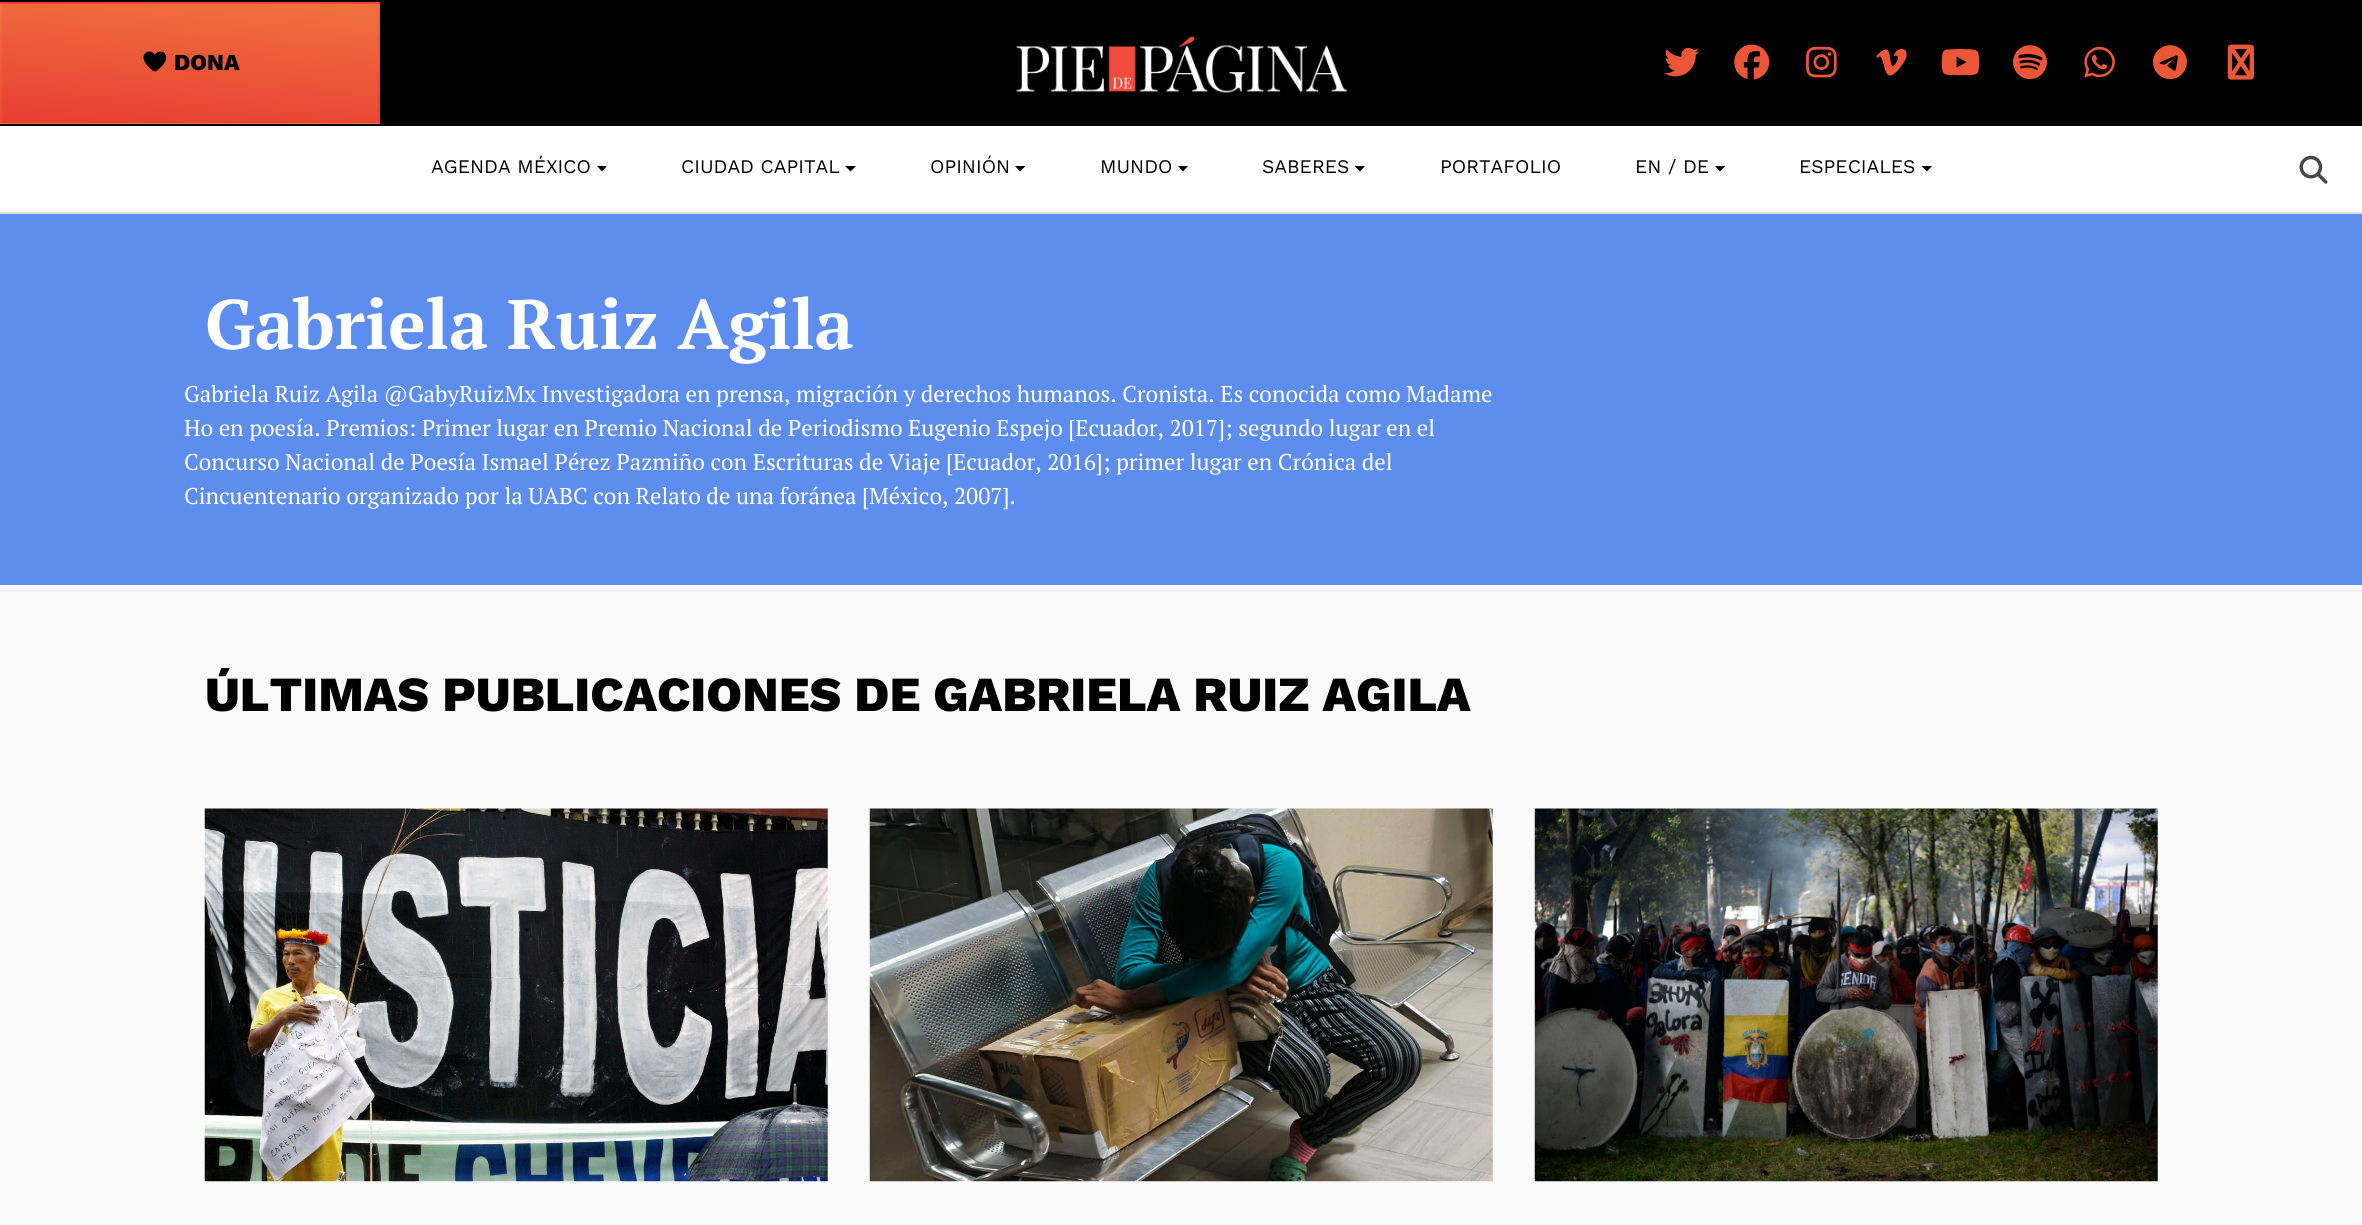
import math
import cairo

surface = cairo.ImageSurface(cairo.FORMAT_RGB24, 2362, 1225)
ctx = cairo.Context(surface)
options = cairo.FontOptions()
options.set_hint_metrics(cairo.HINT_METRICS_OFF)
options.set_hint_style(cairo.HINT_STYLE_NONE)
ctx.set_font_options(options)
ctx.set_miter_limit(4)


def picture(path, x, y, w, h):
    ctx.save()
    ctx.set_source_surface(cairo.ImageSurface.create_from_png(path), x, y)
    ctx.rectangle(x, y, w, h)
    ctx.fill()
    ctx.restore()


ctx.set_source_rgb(0.98, 0.98, 0.98)
ctx.paint()
ctx.set_source_rgb(0, 0, 0)
ctx.rectangle(0, 0, 2362, 126)
ctx.fill()
gradient = cairo.LinearGradient(-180, -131, -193, 19)
gradient.add_color_stop_rgba(0, 0.941, 0.451, 0.243, 1)
gradient.add_color_stop_rgba(1, 0.91, 0.243, 0.2, 1)
ctx.set_source(gradient)
ctx.rectangle(0, 2, 2, 2)
ctx.fill()
gradient = cairo.LinearGradient(196, -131, 184, 19)
gradient.add_color_stop_rgba(0, 0.941, 0.451, 0.243, 1)
gradient.add_color_stop_rgba(1, 0.91, 0.243, 0.2, 1)
ctx.set_source(gradient)
ctx.rectangle(2, 2, 376, 2)
ctx.fill()
gradient = cairo.LinearGradient(572, -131, 560, 19)
gradient.add_color_stop_rgba(0, 0.941, 0.451, 0.243, 1)
gradient.add_color_stop_rgba(1, 0.91, 0.243, 0.2, 1)
ctx.set_source(gradient)
ctx.rectangle(378, 2, 2, 2)
ctx.fill()
gradient = cairo.LinearGradient(-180, -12, -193, 138)
gradient.add_color_stop_rgba(0, 0.941, 0.451, 0.243, 1)
gradient.add_color_stop_rgba(1, 0.91, 0.243, 0.2, 1)
ctx.set_source(gradient)
ctx.rectangle(0, 4, 2, 119)
ctx.fill()
gradient = cairo.LinearGradient(196, -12, 184, 138)
gradient.add_color_stop_rgba(0, 0.941, 0.451, 0.243, 1)
gradient.add_color_stop_rgba(1, 0.91, 0.243, 0.2, 1)
ctx.set_source(gradient)
ctx.rectangle(2, 4, 376, 119)
ctx.fill()
gradient = cairo.LinearGradient(572, -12, 560, 138)
gradient.add_color_stop_rgba(0, 0.941, 0.451, 0.243, 1)
gradient.add_color_stop_rgba(1, 0.91, 0.243, 0.2, 1)
ctx.set_source(gradient)
ctx.rectangle(378, 4, 2, 119)
ctx.fill()
gradient = cairo.LinearGradient(-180, 107, -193, 257)
gradient.add_color_stop_rgba(0, 0.941, 0.451, 0.243, 1)
gradient.add_color_stop_rgba(1, 0.91, 0.243, 0.2, 1)
ctx.set_source(gradient)
ctx.rectangle(0, 123, 2, 1)
ctx.fill()
gradient = cairo.LinearGradient(196, 107, 184, 257)
gradient.add_color_stop_rgba(0, 0.941, 0.451, 0.243, 1)
gradient.add_color_stop_rgba(1, 0.91, 0.243, 0.2, 1)
ctx.set_source(gradient)
ctx.rectangle(2, 123, 376, 1)
ctx.fill()
gradient = cairo.LinearGradient(572, 107, 560, 257)
gradient.add_color_stop_rgba(0, 0.941, 0.451, 0.243, 1)
gradient.add_color_stop_rgba(1, 0.91, 0.243, 0.2, 1)
ctx.set_source(gradient)
ctx.rectangle(378, 123, 2, 1)
ctx.fill()
picture("img1.png", 143, 51, 24, 21)
ctx.select_font_face("Work Sans ExtraBold")
ctx.set_font_size(22.75)
ctx.set_source_rgb(0, 0, 0)
ctx.move_to(174, 70)
ctx.show_text("DONA")
picture("img2.png", 1016, 36, 332, 57)
picture("img3.png", 1664, 47, 36, 30)
picture("img4.png", 1734, 44, 36, 36)
picture("img5.png", 1806, 46, 31, 32)
picture("img6.png", 1876, 49, 31, 27)
picture("img7.png", 1941, 49, 39, 27)
picture("img8.png", 2013, 45, 34, 35)
picture("img9.png", 2084, 46, 31, 32)
picture("img10.png", 2153, 45, 34, 35)
picture("img11.png", 2227, 44, 27, 36)
ctx.set_source_rgb(1, 1, 1)
ctx.rectangle(0, 126, 2362, 86)
ctx.fill()
ctx.set_source_rgb(0.871, 0.886, 0.902)
ctx.rectangle(0, 212, 2362, 2)
ctx.fill()
ctx.select_font_face("Work Sans")
ctx.set_font_size(19.25)
ctx.set_source_rgb(0, 0, 0)
ctx.move_to(431, 173)
ctx.show_text("AGENDA MÉXICO")
ctx.new_path()
ctx.move_to(597, 166)
ctx.line_to(607, 166)
ctx.line_to(602, 171.5)
ctx.close_path()
ctx.fill()
ctx.move_to(681, 173)
ctx.show_text("CIUDAD CAPITAL")
ctx.new_path()
ctx.move_to(845, 166)
ctx.line_to(856, 166)
ctx.line_to(850.5, 171.5)
ctx.close_path()
ctx.fill()
ctx.move_to(930, 173)
ctx.show_text("OPINIÓN")
ctx.new_path()
ctx.move_to(1015, 166)
ctx.line_to(1025.5, 166)
ctx.line_to(1020, 171.5)
ctx.close_path()
ctx.fill()
ctx.move_to(1100, 173)
ctx.show_text("MUNDO")
ctx.new_path()
ctx.move_to(1178, 166)
ctx.line_to(1188, 166)
ctx.line_to(1183, 171.5)
ctx.close_path()
ctx.fill()
ctx.move_to(1262, 173)
ctx.show_text("SABERES")
ctx.new_path()
ctx.move_to(1354.5, 166)
ctx.line_to(1365, 166)
ctx.line_to(1360, 171.5)
ctx.close_path()
ctx.fill()
ctx.move_to(1440, 173)
ctx.show_text("PORTAFOLIO")
ctx.move_to(1635, 173)
ctx.show_text("EN / DE")
ctx.new_path()
ctx.move_to(1715, 166)
ctx.line_to(1725.5, 166)
ctx.line_to(1720, 171.5)
ctx.close_path()
ctx.fill()
ctx.move_to(1799, 173)
ctx.show_text("ESPECIALES")
ctx.new_path()
ctx.move_to(1921.5, 166)
ctx.line_to(1932, 166)
ctx.line_to(1927, 171.5)
ctx.close_path()
ctx.fill()
picture("img12.png", 2299, 155, 29, 29)
ctx.set_source_rgb(0.361, 0.553, 0.937)
ctx.rectangle(0, 214, 2362, 371)
ctx.fill()
ctx.select_font_face("PT Serif", cairo.FONT_SLANT_NORMAL, cairo.FONT_WEIGHT_BOLD)
ctx.set_font_size(70)
ctx.set_source_rgb(1, 1, 1)
ctx.move_to(205, 349)
ctx.show_text("Gabriela Ruiz Agila")
ctx.select_font_face("PT Serif")
ctx.set_font_size(22.75)
ctx.move_to(184, 402)
ctx.show_text("Gabriela Ruiz Agila @GabyRuizMx Investigadora en prensa, migración y derechos humanos. Cronista. Es conocida como Madame")
ctx.move_to(184, 436)
ctx.show_text("Ho en poesía. Premios: Primer lugar en Premio Nacional de Periodismo Eugenio Espejo [Ecuador, 2017]; segundo lugar en el")
ctx.move_to(184, 470)
ctx.show_text("Concurso Nacional de Poesía Ismael Pérez Pazmiño con Escrituras de Viaje [Ecuador, 2016]; primer lugar en Crónica del")
ctx.move_to(184, 504)
ctx.show_text("Cincuentenario organizado por la UABC con Relato de una foránea [México, 2007].")
ctx.select_font_face("Work Sans ExtraBold")
ctx.set_font_size(49)
ctx.set_source_rgb(0, 0, 0)
ctx.move_to(205, 711)
ctx.show_text("ÚLTIMAS PUBLICACIONES DE GABRIELA RUIZ AGILA")
picture("img13.png", 204, 808, 624, 374)
picture("img14.png", 869, 808, 624, 374)
picture("img15.png", 1534, 808, 624, 374)
surface.write_to_png("page.png")
